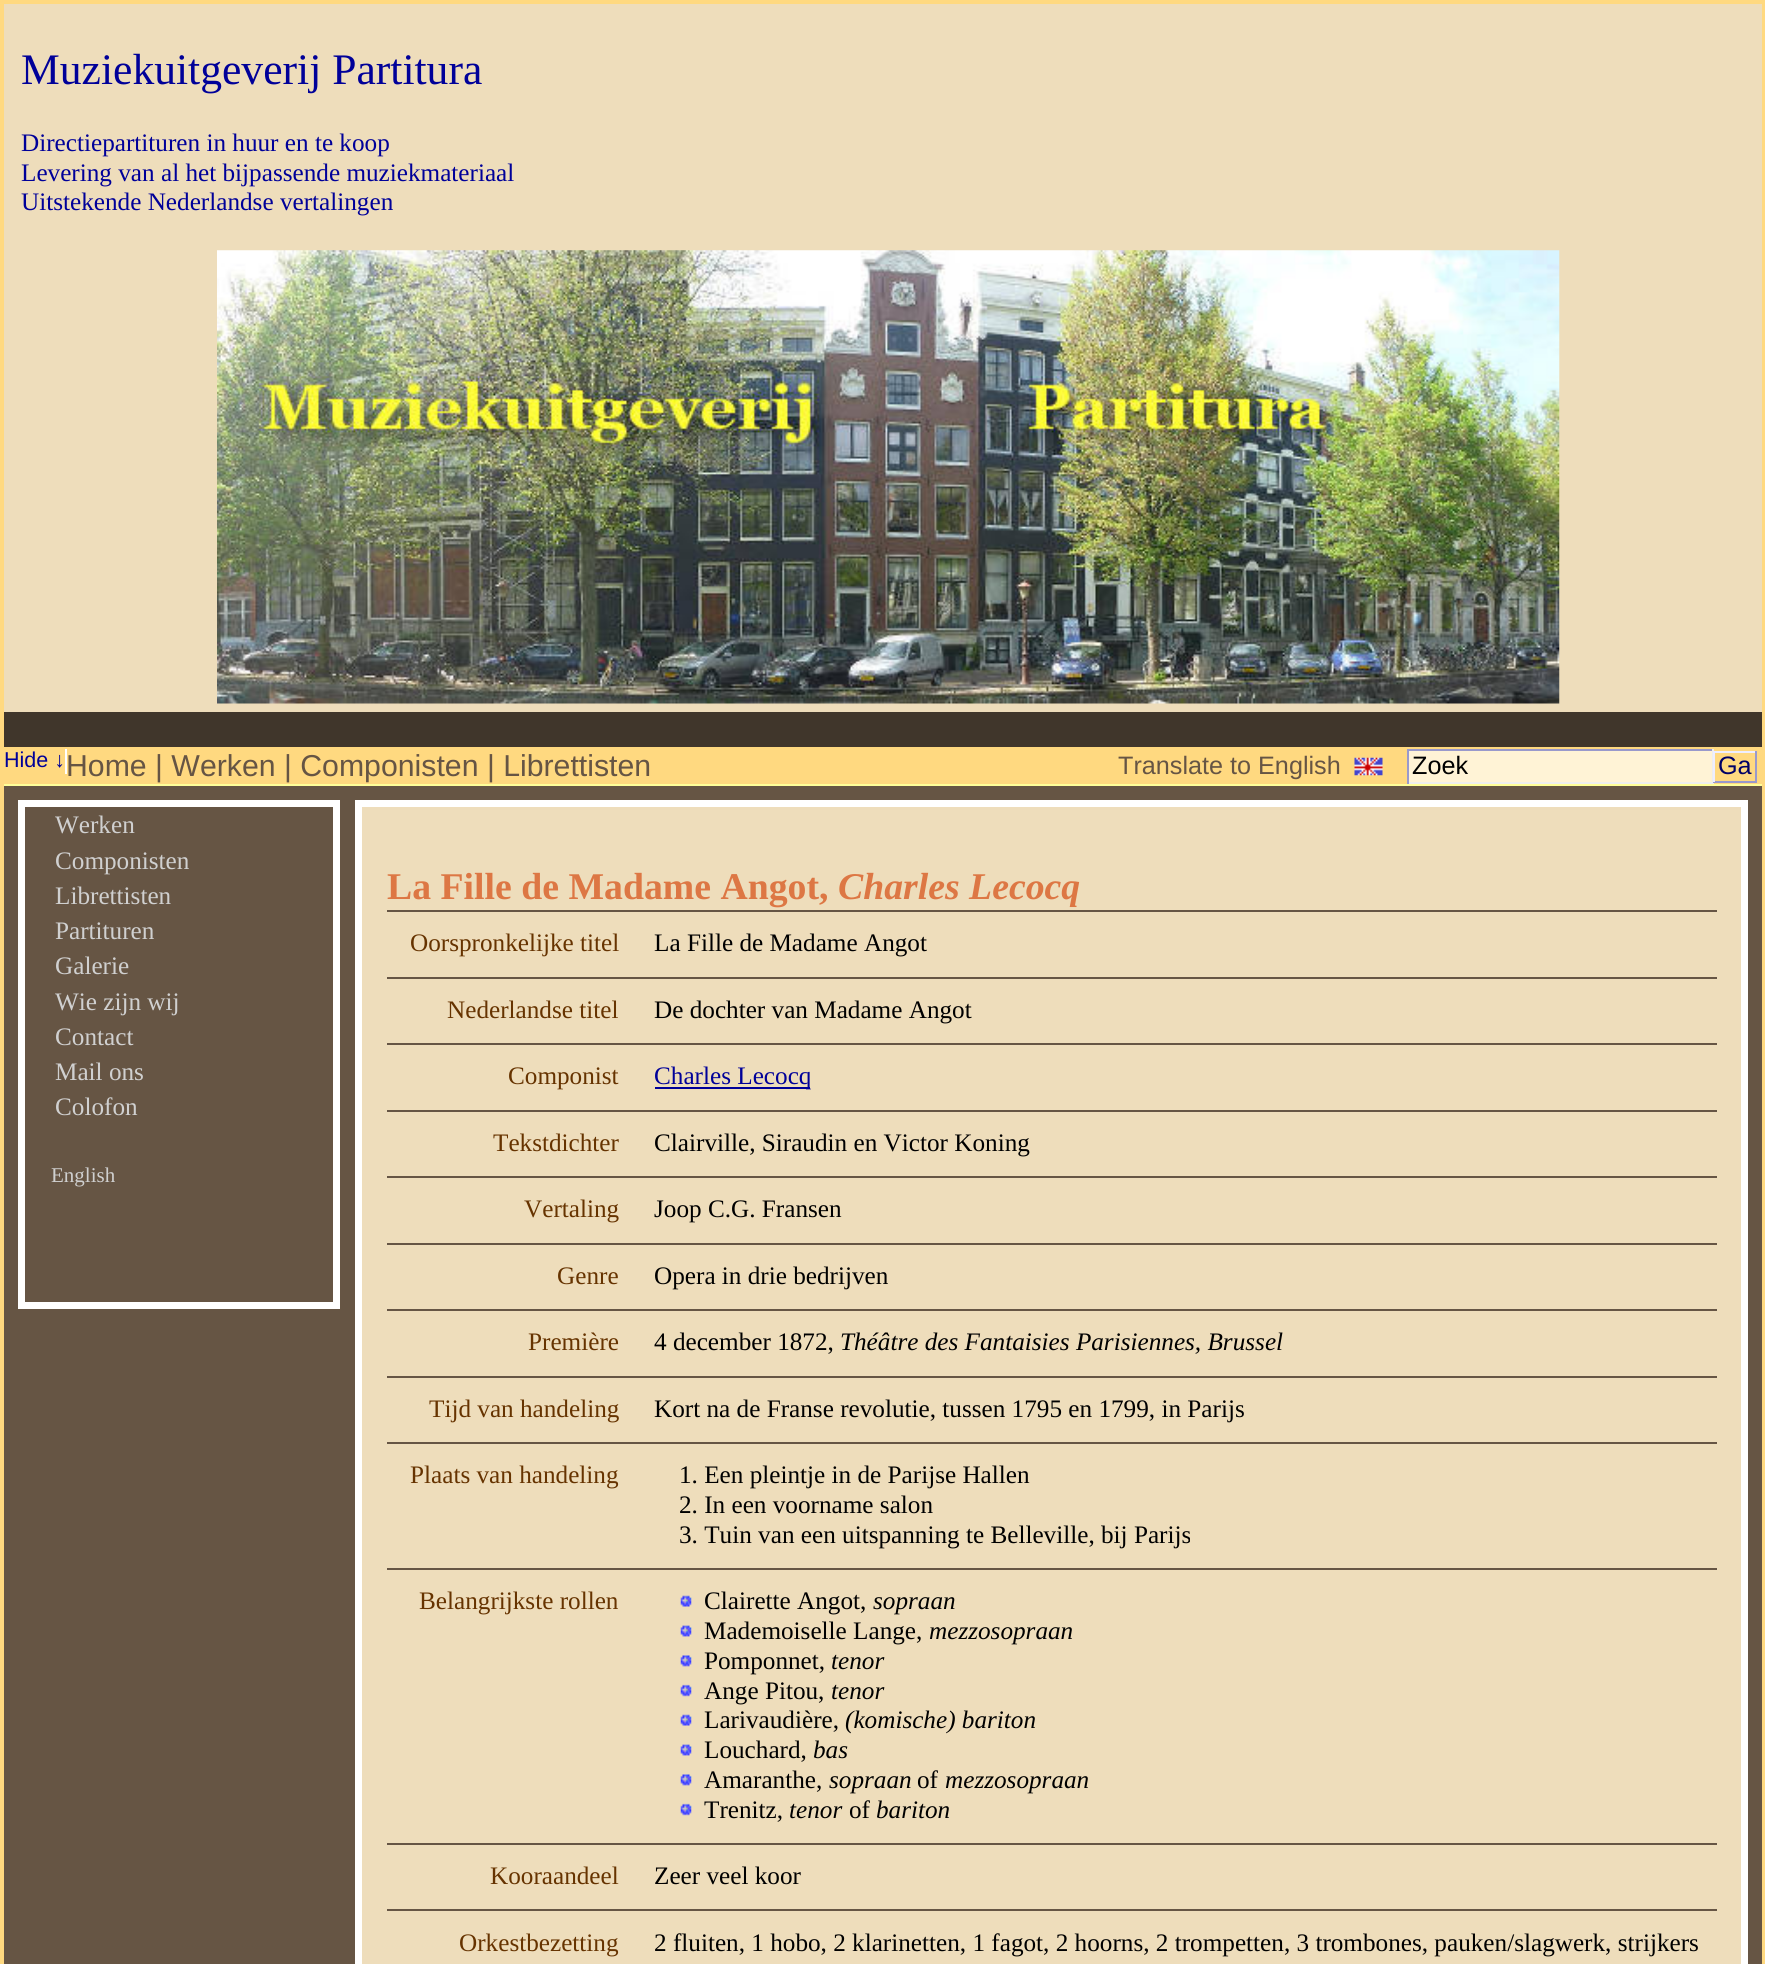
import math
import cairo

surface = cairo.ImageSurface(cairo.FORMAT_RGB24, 1765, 1964)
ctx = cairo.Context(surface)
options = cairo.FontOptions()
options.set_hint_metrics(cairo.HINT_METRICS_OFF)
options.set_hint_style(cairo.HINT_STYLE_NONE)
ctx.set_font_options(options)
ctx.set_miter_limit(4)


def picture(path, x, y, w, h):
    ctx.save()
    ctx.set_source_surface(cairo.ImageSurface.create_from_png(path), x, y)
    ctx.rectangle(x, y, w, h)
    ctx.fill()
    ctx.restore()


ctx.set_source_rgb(0.251, 0.212, 0.169)
ctx.paint()
ctx.rectangle(2, 2, 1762, 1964)
ctx.set_source_rgb(1, 0.851, 0.502)
ctx.set_line_width(4)
ctx.stroke()
ctx.set_source_rgb(0.933, 0.867, 0.733)
ctx.rectangle(4, 4, 1758, 708)
ctx.fill()
ctx.select_font_face("Liberation Serif")
ctx.set_font_size(43.6)
ctx.set_source_rgb(0, 0, 0.6)
ctx.move_to(21, 84)
ctx.show_text("Muziekuitgeverij Partitura")
ctx.set_font_size(25.2)
ctx.move_to(21, 151)
ctx.show_text("Directiepartituren in huur en te koop")
ctx.move_to(21, 181)
ctx.show_text("Levering van al het bijpassende muziekmateriaal")
ctx.move_to(21, 210)
ctx.show_text("Uitstekende Nederlandse vertalingen")
picture("img1.png", 217, 250, 1343, 454)
ctx.set_source_rgb(1, 0.851, 0.502)
ctx.rectangle(4, 747, 1758, 37)
ctx.fill()
ctx.set_source_rgb(1, 1, 0.6)
ctx.rectangle(4, 784, 1758, 2)
ctx.fill()
ctx.set_source_rgb(1, 1, 1)
ctx.rectangle(65, 749, 2, 25)
ctx.fill()
ctx.select_font_face("Liberation Sans")
ctx.set_font_size(21.5)
ctx.set_source_rgb(0, 0, 0.6)
ctx.move_to(4, 767)
ctx.show_text("Hide ↓")
ctx.set_font_size(30.25)
ctx.set_source_rgb(0.4, 0.333, 0.267)
ctx.move_to(66, 776)
ctx.show_text("Home | Werken | Componisten | Librettisten")
ctx.set_font_size(25.2)
ctx.move_to(1118, 774)
ctx.show_text("Translate to English")
picture("img2.png", 1354, 757, 29, 19)
ctx.set_source_rgb(1, 0.953, 0.839)
ctx.rectangle(1409, 751, 303, 31)
ctx.fill()
ctx.set_source_rgb(0.6, 0.6, 0.8)
ctx.rectangle(1407, 749, 306, 2)
ctx.fill()
ctx.set_source_rgb(0.933, 0.933, 0.933)
ctx.rectangle(1712, 749, 2, 35)
ctx.fill()
ctx.rectangle(1407, 782, 306, 2)
ctx.fill()
ctx.set_source_rgb(0.6, 0.6, 0.8)
ctx.rectangle(1407, 749, 2, 35)
ctx.fill()
ctx.set_source_rgb(0, 0, 0)
ctx.move_to(1412, 774)
ctx.show_text("Zoek")
ctx.set_source_rgb(0.933, 0.933, 1)
ctx.rectangle(1713, 751, 44, 2)
ctx.fill()
ctx.set_source_rgb(0.6, 0.6, 0.8)
ctx.rectangle(1755, 751, 2, 31)
ctx.fill()
ctx.rectangle(1713, 781, 44, 2)
ctx.fill()
ctx.set_source_rgb(0.933, 0.933, 1)
ctx.rectangle(1713, 751, 2, 31)
ctx.fill()
ctx.set_source_rgb(0, 0, 0.4)
ctx.move_to(1718, 774)
ctx.show_text("Ga")
ctx.set_source_rgb(0.4, 0.333, 0.267)
ctx.rectangle(4, 786, 1758, 1178)
ctx.fill()
ctx.rectangle(21.5, 803.5, 315, 502)
ctx.set_source_rgb(1, 1, 1)
ctx.set_line_width(7)
ctx.stroke()
ctx.select_font_face("Liberation Serif")
ctx.set_source_rgb(0.816, 0.816, 0.816)
ctx.move_to(55, 833)
ctx.show_text("Werken")
ctx.move_to(55, 869)
ctx.show_text("Componisten")
ctx.move_to(55, 904)
ctx.show_text("Librettisten")
ctx.move_to(55, 939)
ctx.show_text("Partituren")
ctx.move_to(55, 974)
ctx.show_text("Galerie")
ctx.move_to(55, 1010)
ctx.show_text("Wie zijn wij")
ctx.move_to(55, 1045)
ctx.show_text("Contact")
ctx.move_to(55, 1080)
ctx.show_text("Mail ons")
ctx.move_to(55, 1115)
ctx.show_text("Colofon")
ctx.set_font_size(21)
ctx.move_to(51, 1182)
ctx.show_text("English")
ctx.set_source_rgb(0.933, 0.867, 0.733)
ctx.rectangle(358.5, 803.5, 1386, 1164)
ctx.fill_preserve()
ctx.set_source_rgb(1, 1, 1)
ctx.stroke()
ctx.select_font_face("Liberation Serif", cairo.FONT_SLANT_NORMAL, cairo.FONT_WEIGHT_BOLD)
ctx.set_font_size(37.75)
ctx.set_source_rgb(0.867, 0.467, 0.267)
ctx.move_to(387, 899)
ctx.show_text("La Fille de Madame Angot,")
ctx.select_font_face("Liberation Serif", cairo.FONT_SLANT_ITALIC, cairo.FONT_WEIGHT_BOLD)
ctx.move_to(838, 899)
ctx.show_text("Charles Lecocq")
ctx.set_source_rgb(0.4, 0.333, 0.267)
ctx.rectangle(387, 910, 1330, 2)
ctx.fill()
ctx.select_font_face("Liberation Serif")
ctx.set_font_size(25.2)
ctx.set_source_rgb(0.4, 0.2, 0)
ctx.move_to(410, 951)
ctx.show_text("Oorspronkelijke titel")
ctx.set_source_rgb(0, 0, 0)
ctx.move_to(654, 951)
ctx.show_text("La Fille de Madame Angot")
ctx.set_source_rgb(0.4, 0.2, 0)
ctx.move_to(447, 1018)
ctx.show_text("Nederlandse titel")
ctx.set_source_rgb(0.4, 0.333, 0.267)
ctx.rectangle(387, 977, 1330, 2)
ctx.fill()
ctx.set_source_rgb(0, 0, 0)
ctx.move_to(654, 1018)
ctx.show_text("De dochter van Madame Angot")
ctx.set_source_rgb(0.4, 0.2, 0)
ctx.move_to(508, 1084)
ctx.show_text("Componist")
ctx.set_source_rgb(0.4, 0.333, 0.267)
ctx.rectangle(387, 1043, 1330, 2)
ctx.fill()
ctx.set_source_rgb(0, 0, 0.6)
ctx.rectangle(655, 1087, 155, 2)
ctx.fill()
ctx.move_to(654, 1084)
ctx.show_text("Charles Lecocq")
ctx.set_source_rgb(0.4, 0.2, 0)
ctx.move_to(493, 1151)
ctx.show_text("Tekstdichter")
ctx.set_source_rgb(0.4, 0.333, 0.267)
ctx.rectangle(387, 1110, 1330, 2)
ctx.fill()
ctx.set_source_rgb(0, 0, 0)
ctx.move_to(654, 1151)
ctx.show_text("Clairville, Siraudin en Victor Koning")
ctx.set_source_rgb(0.4, 0.2, 0)
ctx.move_to(524, 1217)
ctx.show_text("Vertaling")
ctx.set_source_rgb(0.4, 0.333, 0.267)
ctx.rectangle(387, 1176, 1330, 2)
ctx.fill()
ctx.set_source_rgb(0, 0, 0)
ctx.move_to(654, 1217)
ctx.show_text("Joop C.G. Fransen")
ctx.set_source_rgb(0.4, 0.2, 0)
ctx.move_to(557, 1284)
ctx.show_text("Genre")
ctx.set_source_rgb(0.4, 0.333, 0.267)
ctx.rectangle(387, 1243, 1330, 2)
ctx.fill()
ctx.set_source_rgb(0, 0, 0)
ctx.move_to(654, 1284)
ctx.show_text("Opera in drie bedrijven")
ctx.set_source_rgb(0.4, 0.2, 0)
ctx.move_to(528, 1350)
ctx.show_text("Première")
ctx.set_source_rgb(0.4, 0.333, 0.267)
ctx.rectangle(387, 1309, 1330, 2)
ctx.fill()
ctx.set_source_rgb(0, 0, 0)
ctx.move_to(654, 1350)
ctx.show_text("4 december 1872,")
ctx.select_font_face("Liberation Serif", cairo.FONT_SLANT_ITALIC)
ctx.move_to(840, 1350)
ctx.show_text("Théâtre des Fantaisies Parisiennes, Brussel")
ctx.select_font_face("Liberation Serif")
ctx.set_source_rgb(0.4, 0.2, 0)
ctx.move_to(429, 1417)
ctx.show_text("Tijd van handeling")
ctx.set_source_rgb(0.4, 0.333, 0.267)
ctx.rectangle(387, 1376, 1330, 2)
ctx.fill()
ctx.set_source_rgb(0, 0, 0)
ctx.move_to(654, 1417)
ctx.show_text("Kort na de Franse revolutie, tussen 1795 en 1799, in Parijs")
ctx.set_source_rgb(0.4, 0.2, 0)
ctx.move_to(410, 1483)
ctx.show_text("Plaats van handeling")
ctx.set_source_rgb(0.4, 0.333, 0.267)
ctx.rectangle(387, 1442, 1330, 2)
ctx.fill()
ctx.set_source_rgb(0, 0, 0)
ctx.move_to(679, 1483)
ctx.show_text("1. Een pleintje in de Parijse Hallen")
ctx.move_to(679, 1513)
ctx.show_text("2. In een voorname salon")
ctx.move_to(679, 1543)
ctx.show_text("3. Tuin van een uitspanning te Belleville, bij Parijs")
ctx.set_source_rgb(0.4, 0.2, 0)
ctx.move_to(419, 1609)
ctx.show_text("Belangrijkste rollen")
ctx.set_source_rgb(0.4, 0.333, 0.267)
ctx.rectangle(387, 1568, 1330, 2)
ctx.fill()
picture("img3.png", 680, 1595, 12, 12)
ctx.set_source_rgb(0, 0, 0)
ctx.move_to(704, 1609)
ctx.show_text("Clairette Angot,")
ctx.select_font_face("Liberation Serif", cairo.FONT_SLANT_ITALIC)
ctx.move_to(873, 1609)
ctx.show_text("sopraan")
picture("img4.png", 680, 1625, 12, 12)
ctx.select_font_face("Liberation Serif")
ctx.move_to(704, 1639)
ctx.show_text("Mademoiselle Lange,")
ctx.select_font_face("Liberation Serif", cairo.FONT_SLANT_ITALIC)
ctx.move_to(929, 1639)
ctx.show_text("mezzosopraan")
picture("img5.png", 680, 1655, 12, 12)
ctx.select_font_face("Liberation Serif")
ctx.move_to(704, 1669)
ctx.show_text("Pomponnet,")
ctx.select_font_face("Liberation Serif", cairo.FONT_SLANT_ITALIC)
ctx.move_to(831, 1669)
ctx.show_text("tenor")
picture("img6.png", 680, 1684, 12, 13)
ctx.select_font_face("Liberation Serif")
ctx.move_to(704, 1699)
ctx.show_text("Ange Pitou,")
ctx.select_font_face("Liberation Serif", cairo.FONT_SLANT_ITALIC)
ctx.move_to(831, 1699)
ctx.show_text("tenor")
picture("img3.png", 680, 1714, 12, 12)
ctx.select_font_face("Liberation Serif")
ctx.move_to(704, 1728)
ctx.show_text("Larivaudière,")
ctx.select_font_face("Liberation Serif", cairo.FONT_SLANT_ITALIC)
ctx.move_to(845, 1728)
ctx.show_text("(komische) bariton")
picture("img4.png", 680, 1744, 12, 12)
ctx.select_font_face("Liberation Serif")
ctx.move_to(704, 1758)
ctx.show_text("Louchard,")
ctx.select_font_face("Liberation Serif", cairo.FONT_SLANT_ITALIC)
ctx.move_to(813, 1758)
ctx.show_text("bas")
picture("img5.png", 680, 1774, 12, 12)
ctx.select_font_face("Liberation Serif")
ctx.move_to(704, 1788)
ctx.show_text("Amaranthe,")
ctx.select_font_face("Liberation Serif", cairo.FONT_SLANT_ITALIC)
ctx.move_to(829, 1788)
ctx.show_text("sopraan")
ctx.select_font_face("Liberation Serif")
ctx.move_to(917, 1788)
ctx.show_text("of")
ctx.select_font_face("Liberation Serif", cairo.FONT_SLANT_ITALIC)
ctx.move_to(945, 1788)
ctx.show_text("mezzosopraan")
picture("img6.png", 680, 1803, 12, 13)
ctx.select_font_face("Liberation Serif")
ctx.move_to(704, 1818)
ctx.show_text("Trenitz,")
ctx.select_font_face("Liberation Serif", cairo.FONT_SLANT_ITALIC)
ctx.move_to(789, 1818)
ctx.show_text("tenor")
ctx.select_font_face("Liberation Serif")
ctx.move_to(849, 1818)
ctx.show_text("of")
ctx.select_font_face("Liberation Serif", cairo.FONT_SLANT_ITALIC)
ctx.move_to(876, 1818)
ctx.show_text("bariton")
ctx.select_font_face("Liberation Serif")
ctx.set_source_rgb(0.4, 0.2, 0)
ctx.move_to(490, 1884)
ctx.show_text("Kooraandeel")
ctx.set_source_rgb(0.4, 0.333, 0.267)
ctx.rectangle(387, 1843, 1330, 2)
ctx.fill()
ctx.set_source_rgb(0, 0, 0)
ctx.move_to(654, 1884)
ctx.show_text("Zeer veel koor")
ctx.set_source_rgb(0.4, 0.2, 0)
ctx.move_to(459, 1951)
ctx.show_text("Orkestbezetting")
ctx.set_source_rgb(0.4, 0.333, 0.267)
ctx.rectangle(387, 1909, 1330, 2)
ctx.fill()
ctx.set_source_rgb(0, 0, 0)
ctx.move_to(654, 1951)
ctx.show_text("2 fluiten, 1 hobo, 2 klarinetten, 1 fagot, 2 hoorns, 2 trompetten, 3 trombones, pauken/slagwerk, strijkers")
surface.write_to_png("page.png")
